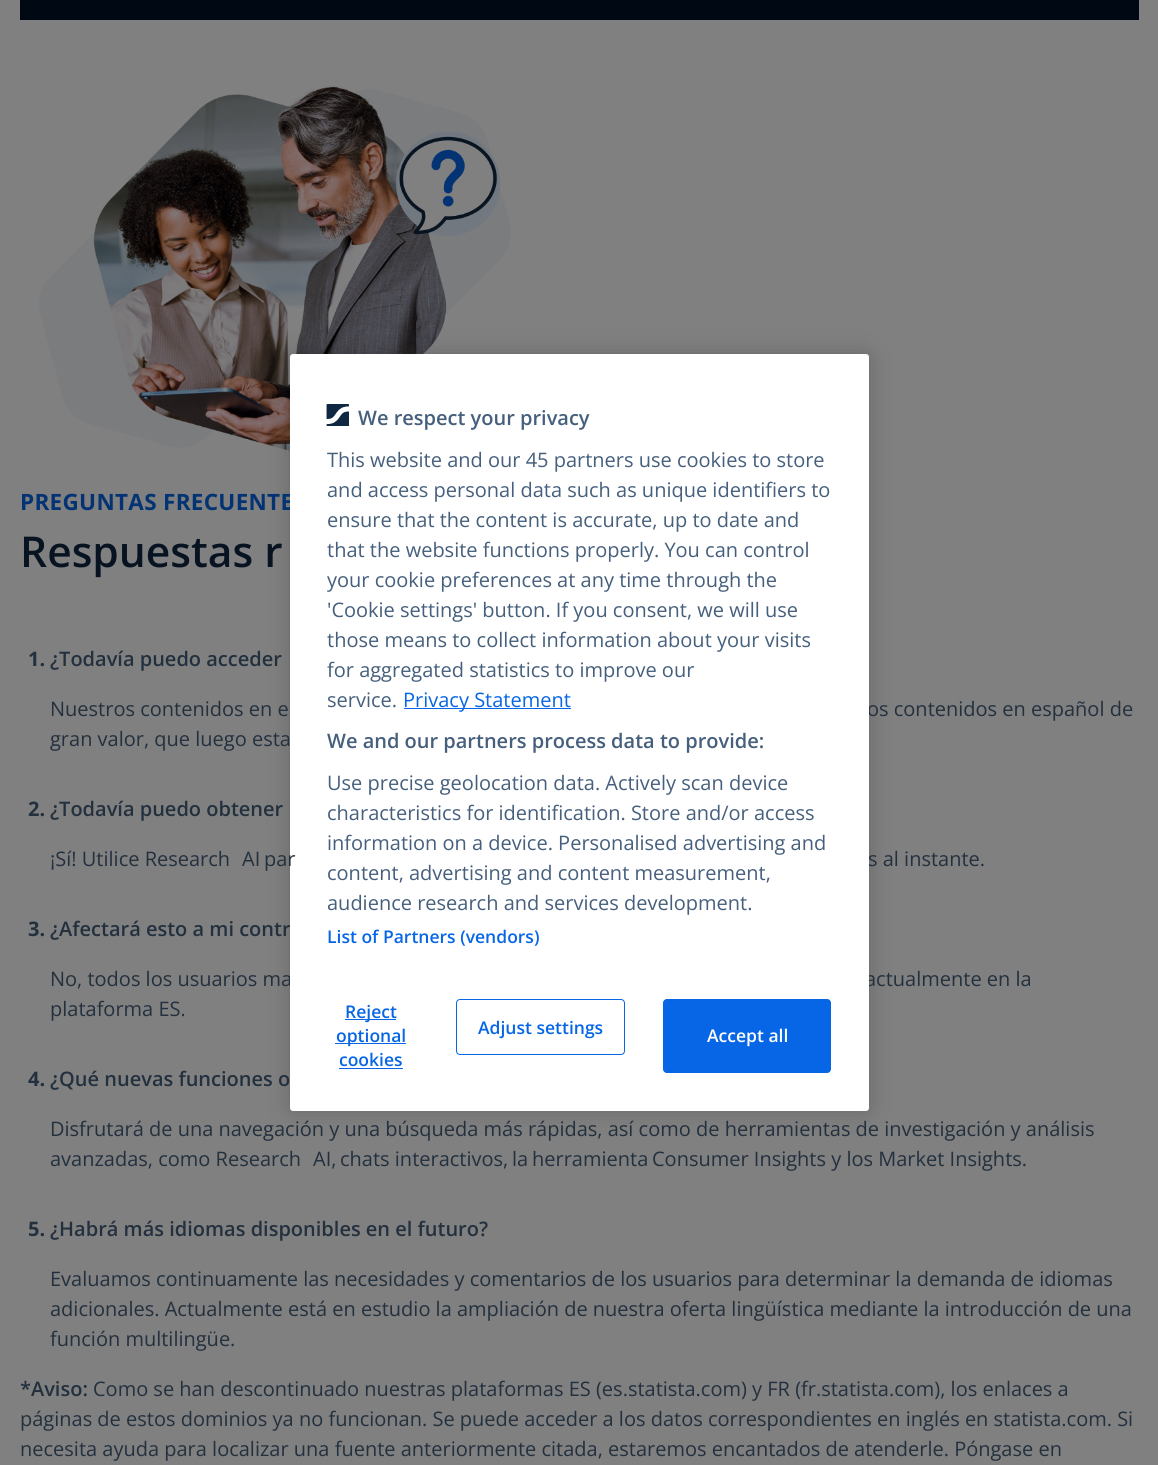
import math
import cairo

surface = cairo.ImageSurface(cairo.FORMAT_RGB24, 1158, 1465)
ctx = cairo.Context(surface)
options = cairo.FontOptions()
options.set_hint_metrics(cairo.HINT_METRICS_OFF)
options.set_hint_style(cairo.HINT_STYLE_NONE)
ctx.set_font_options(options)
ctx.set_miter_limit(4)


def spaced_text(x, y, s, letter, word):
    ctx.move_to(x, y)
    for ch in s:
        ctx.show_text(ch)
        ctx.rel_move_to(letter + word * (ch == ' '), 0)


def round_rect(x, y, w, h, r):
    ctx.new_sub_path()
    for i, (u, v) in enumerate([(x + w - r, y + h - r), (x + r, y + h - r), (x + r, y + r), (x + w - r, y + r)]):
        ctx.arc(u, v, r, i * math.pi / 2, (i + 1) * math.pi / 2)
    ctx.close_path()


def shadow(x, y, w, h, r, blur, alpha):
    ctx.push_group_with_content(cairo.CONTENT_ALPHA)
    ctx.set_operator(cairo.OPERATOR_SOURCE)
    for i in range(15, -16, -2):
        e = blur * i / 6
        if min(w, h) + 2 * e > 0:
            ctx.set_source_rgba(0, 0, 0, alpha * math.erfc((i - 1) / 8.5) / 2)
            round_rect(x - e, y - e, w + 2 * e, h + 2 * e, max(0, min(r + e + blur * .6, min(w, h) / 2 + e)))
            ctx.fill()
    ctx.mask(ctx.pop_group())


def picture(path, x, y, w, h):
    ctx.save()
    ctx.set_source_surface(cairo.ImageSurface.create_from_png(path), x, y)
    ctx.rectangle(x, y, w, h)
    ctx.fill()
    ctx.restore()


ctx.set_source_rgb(0.502, 0.502, 0.502)
ctx.paint()
picture("img2.png", 39, 86, 472, 367)
ctx.set_source_rgb(0, 0, 0)
shadow(290, 354, 579, 757, 3, 11, 0.2)
ctx.select_font_face("Open Sans", cairo.FONT_SLANT_NORMAL, cairo.FONT_WEIGHT_BOLD)
ctx.set_font_size(22.5)
ctx.set_source_rgb(0.012, 0.2, 0.451)
spaced_text(20, 510, "PREGUNTAS FRECUENTE", 0.3, 0)
ctx.select_font_face("Open Sans")
ctx.set_font_size(20)
ctx.set_source_rgb(0.137, 0.188, 0.243)
ctx.move_to(867, 716)
ctx.show_text("os contenidos en español de")
ctx.select_font_face("Open Sans SemiBold")
ctx.move_to(50, 936)
ctx.show_text("¿Afectará esto a mi contr")
ctx.select_font_face("Open Sans")
ctx.move_to(50, 986)
ctx.show_text("No, todos los usuarios ma")
ctx.move_to(865, 986)
ctx.show_text("actualmente en la")
ctx.set_source_rgb(1, 1, 1)
round_rect(290, 354, 579, 757, 3)
ctx.fill()
picture("img1.png", 326, 404, 23, 22)
ctx.select_font_face("Open Sans SemiBold")
ctx.set_source_rgb(0.271, 0.373, 0.486)
ctx.move_to(358, 425)
ctx.show_text("We respect your privacy")
ctx.select_font_face("Open Sans")
ctx.move_to(327, 467)
ctx.show_text("This website and our 45 partners use cookies to store")
ctx.move_to(327, 497)
ctx.show_text("and access personal data such as unique identifiers to")
ctx.move_to(327, 527)
ctx.show_text("ensure that the content is accurate, up to date and")
ctx.move_to(327, 557)
ctx.show_text("that the website functions properly. You can control")
ctx.move_to(327, 587)
ctx.show_text("your cookie preferences at any time through the")
ctx.move_to(327, 617)
ctx.show_text("'Cookie settings' button. If you consent, we will use")
ctx.move_to(327, 647)
ctx.show_text("those means to collect information about your visits")
ctx.move_to(327, 677)
ctx.show_text("for aggregated statistics to improve our")
ctx.move_to(327, 707)
ctx.show_text("service.")
ctx.set_source_rgb(0.024, 0.4, 0.898)
ctx.rectangle(404, 708, 167, 1)
ctx.fill()
ctx.move_to(403, 707)
ctx.show_text("Privacy Statement")
ctx.select_font_face("Open Sans SemiBold")
ctx.set_source_rgb(0.271, 0.373, 0.486)
ctx.move_to(327, 748)
ctx.show_text("We and our partners process data to provide:")
ctx.select_font_face("Open Sans")
ctx.move_to(327, 790)
ctx.show_text("Use precise geolocation data. Actively scan device")
ctx.move_to(327, 820)
ctx.show_text("characteristics for identification. Store and/or access")
ctx.move_to(327, 850)
ctx.show_text("information on a device. Personalised advertising and")
ctx.move_to(327, 880)
ctx.show_text("content, advertising and content measurement,")
ctx.move_to(327, 910)
ctx.show_text("audience research and services development.")
ctx.select_font_face("Open Sans SemiBold")
ctx.set_font_size(17.5)
ctx.set_source_rgb(0.024, 0.4, 0.898)
ctx.move_to(327, 943)
ctx.show_text("List of Partners (vendors)")
ctx.rectangle(345, 1019, 51, 1)
ctx.fill()
ctx.move_to(345, 1018)
ctx.show_text("Reject")
ctx.rectangle(335, 1043, 71, 1)
ctx.fill()
ctx.move_to(336, 1042)
ctx.show_text("optional")
ctx.move_to(339, 1066)
ctx.show_text("cookies")
ctx.rectangle(339, 1068, 64, 1)
ctx.fill()
round_rect(663.5, 999.5, 167, 73, 3.5)
ctx.fill_preserve()
ctx.set_line_width(1)
ctx.stroke()
ctx.set_source_rgb(1, 1, 1)
ctx.move_to(707, 1042)
ctx.show_text("Accept all")
round_rect(456.5, 999.5, 168, 55, 3.5)
ctx.set_source_rgb(0.024, 0.4, 0.898)
ctx.stroke()
ctx.move_to(478, 1034)
ctx.show_text("Adjust settings")
ctx.set_source_rgb(0, 0.039, 0.078)
ctx.rectangle(20, 0, 1119, 20)
ctx.fill()
ctx.set_font_size(42.5)
ctx.set_source_rgb(0.031, 0.078, 0.129)
ctx.move_to(20, 567)
ctx.show_text("Respuestas r")
ctx.select_font_face("Open Sans", cairo.FONT_SLANT_NORMAL, cairo.FONT_WEIGHT_BOLD)
ctx.set_font_size(20)
ctx.set_source_rgb(0.137, 0.188, 0.243)
ctx.move_to(28, 666)
ctx.show_text("1.")
ctx.select_font_face("Open Sans SemiBold")
ctx.move_to(50, 666)
ctx.show_text("¿Todavía puedo acceder")
ctx.select_font_face("Open Sans")
ctx.move_to(50, 716)
ctx.show_text("Nuestros contenidos en e")
ctx.move_to(50, 746)
ctx.show_text("gran valor, que luego esta")
ctx.select_font_face("Open Sans", cairo.FONT_SLANT_NORMAL, cairo.FONT_WEIGHT_BOLD)
ctx.move_to(28, 816)
ctx.show_text("2.")
ctx.select_font_face("Open Sans SemiBold")
ctx.move_to(50, 816)
ctx.show_text("¿Todavía puedo obtener")
ctx.select_font_face("Open Sans")
ctx.move_to(50, 866)
ctx.show_text("¡Sí! Utilice Research AI")
ctx.move_to(264, 866)
ctx.show_text("par")
ctx.move_to(868, 866)
ctx.show_text("s al instante.")
ctx.select_font_face("Open Sans", cairo.FONT_SLANT_NORMAL, cairo.FONT_WEIGHT_BOLD)
ctx.move_to(28, 936)
ctx.show_text("3.")
ctx.select_font_face("Open Sans")
ctx.move_to(50, 1016)
ctx.show_text("plataforma ES.")
ctx.select_font_face("Open Sans", cairo.FONT_SLANT_NORMAL, cairo.FONT_WEIGHT_BOLD)
ctx.move_to(28, 1086)
ctx.show_text("4.")
ctx.select_font_face("Open Sans SemiBold")
ctx.move_to(50, 1086)
ctx.show_text("¿Qué nuevas funciones o")
ctx.select_font_face("Open Sans")
ctx.move_to(50, 1136)
ctx.show_text("Disfrutará de una navegación y una búsqueda más rápidas, así como de herramientas de investigación y análisis")
ctx.move_to(50, 1166)
ctx.show_text("avanzadas, como Research AI,")
ctx.move_to(340, 1166)
ctx.show_text("chats interactivos,")
ctx.move_to(512, 1166)
ctx.show_text("la")
ctx.move_to(532, 1166)
ctx.show_text("herramienta")
ctx.move_to(652, 1166)
ctx.show_text("Consumer Insights y los Market Insights.")
ctx.select_font_face("Open Sans", cairo.FONT_SLANT_NORMAL, cairo.FONT_WEIGHT_BOLD)
ctx.move_to(28, 1236)
ctx.show_text("5.")
ctx.select_font_face("Open Sans SemiBold")
ctx.move_to(50, 1236)
ctx.show_text("¿Habrá más idiomas disponibles en el futuro?")
ctx.select_font_face("Open Sans")
ctx.move_to(50, 1286)
ctx.show_text("Evaluamos continuamente las necesidades y comentarios de los usuarios para determinar la demanda de idiomas")
ctx.move_to(50, 1316)
ctx.show_text("adicionales. Actualmente está en estudio la ampliación de nuestra oferta lingüística mediante la introducción de una")
ctx.move_to(50, 1346)
ctx.show_text("función multilingüe.")
ctx.select_font_face("Open Sans SemiBold")
ctx.move_to(20, 1396)
ctx.show_text("*Aviso:")
ctx.select_font_face("Open Sans")
ctx.move_to(93, 1396)
ctx.show_text("Como se han descontinuado nuestras plataformas ES (es.statista.com) y FR (fr.statista.com), los enlaces a")
ctx.move_to(20, 1426)
ctx.show_text("páginas de estos dominios ya no funcionan. Se puede acceder a los datos correspondientes en inglés en statista.com. Si")
ctx.move_to(20, 1456)
ctx.show_text("necesita ayuda para localizar una fuente anteriormente citada, estaremos encantados de atenderle. Póngase en")
surface.write_to_png("page.png")
